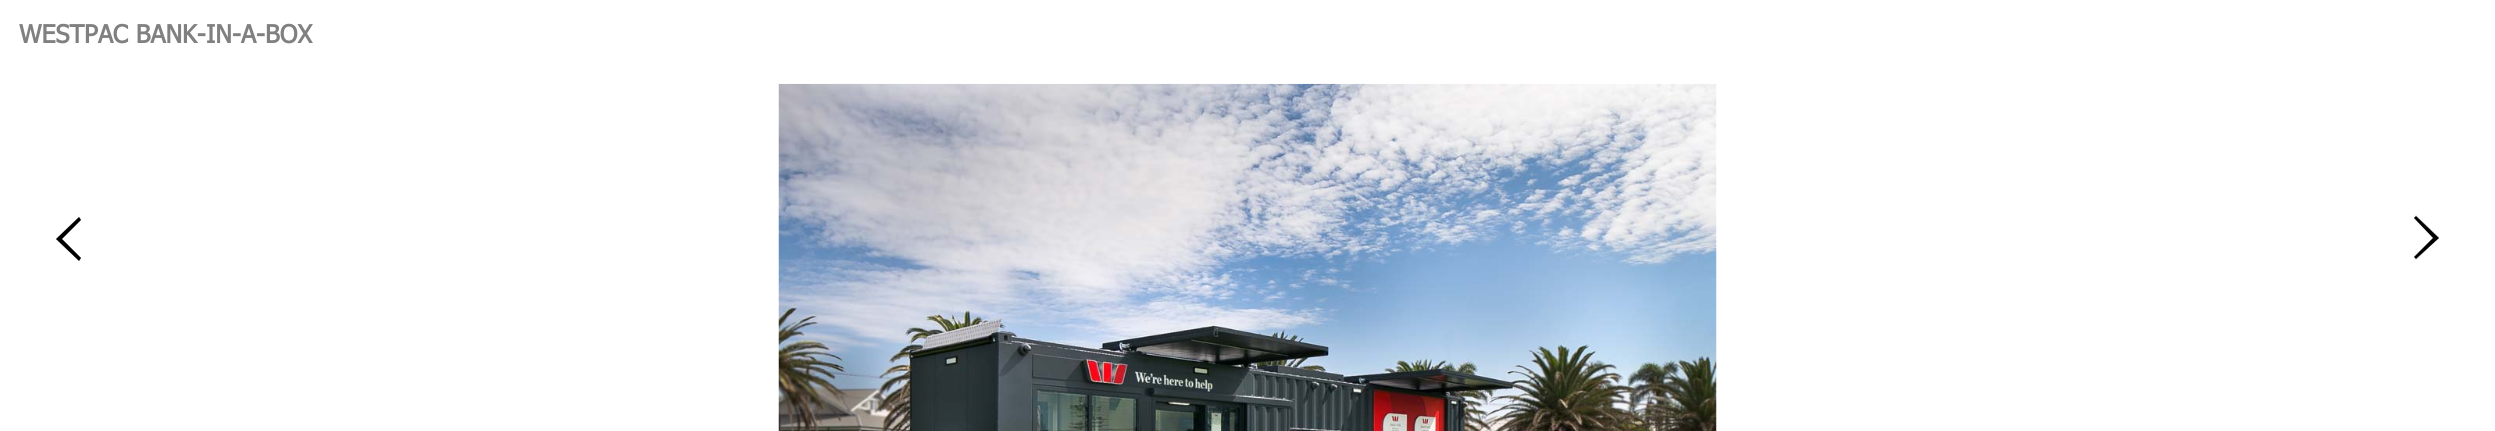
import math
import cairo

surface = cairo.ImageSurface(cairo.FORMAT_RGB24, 2495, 431)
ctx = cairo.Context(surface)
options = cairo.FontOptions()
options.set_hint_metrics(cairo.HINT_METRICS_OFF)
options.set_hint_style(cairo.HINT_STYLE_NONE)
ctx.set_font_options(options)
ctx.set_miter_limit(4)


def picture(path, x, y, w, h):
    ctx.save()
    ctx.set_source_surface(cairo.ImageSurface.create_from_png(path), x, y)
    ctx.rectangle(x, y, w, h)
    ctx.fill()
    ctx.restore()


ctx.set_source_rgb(1, 1, 1)
ctx.paint()
ctx.select_font_face("Tahoma", cairo.FONT_SLANT_NORMAL, cairo.FONT_WEIGHT_BOLD)
ctx.set_font_size(25)
ctx.set_source_rgb(0.502, 0.502, 0.502)
ctx.move_to(19, 43)
ctx.show_text("WESTPAC BANK-IN-A-BOX")
ctx.set_source_rgb(0, 0, 0)
ctx.new_path()
ctx.move_to(81, 258)
ctx.line_to(79, 261)
ctx.line_to(56, 239)
ctx.line_to(79, 217)
ctx.line_to(81, 220)
ctx.line_to(62, 239)
ctx.close_path()
ctx.fill()
ctx.new_path()
ctx.move_to(81, 258)
ctx.line_to(79, 260.5)
ctx.line_to(56, 239)
ctx.line_to(79, 217)
ctx.line_to(81, 219.5)
ctx.line_to(61.5, 239)
ctx.close_path()
ctx.set_line_width(0.1)
ctx.stroke()
picture("img1.png", 778, 83, 939, 348)
ctx.new_path()
ctx.move_to(2414, 218)
ctx.line_to(2416, 216)
ctx.line_to(2439, 238)
ctx.line_to(2416, 259)
ctx.line_to(2414, 257)
ctx.line_to(2433, 238)
ctx.close_path()
ctx.fill()
ctx.new_path()
ctx.move_to(2414, 218.5)
ctx.line_to(2416, 215.5)
ctx.line_to(2439, 237.5)
ctx.line_to(2416, 259.5)
ctx.line_to(2414, 256.5)
ctx.line_to(2433.5, 237.5)
ctx.close_path()
ctx.stroke()
surface.write_to_png("page.png")
